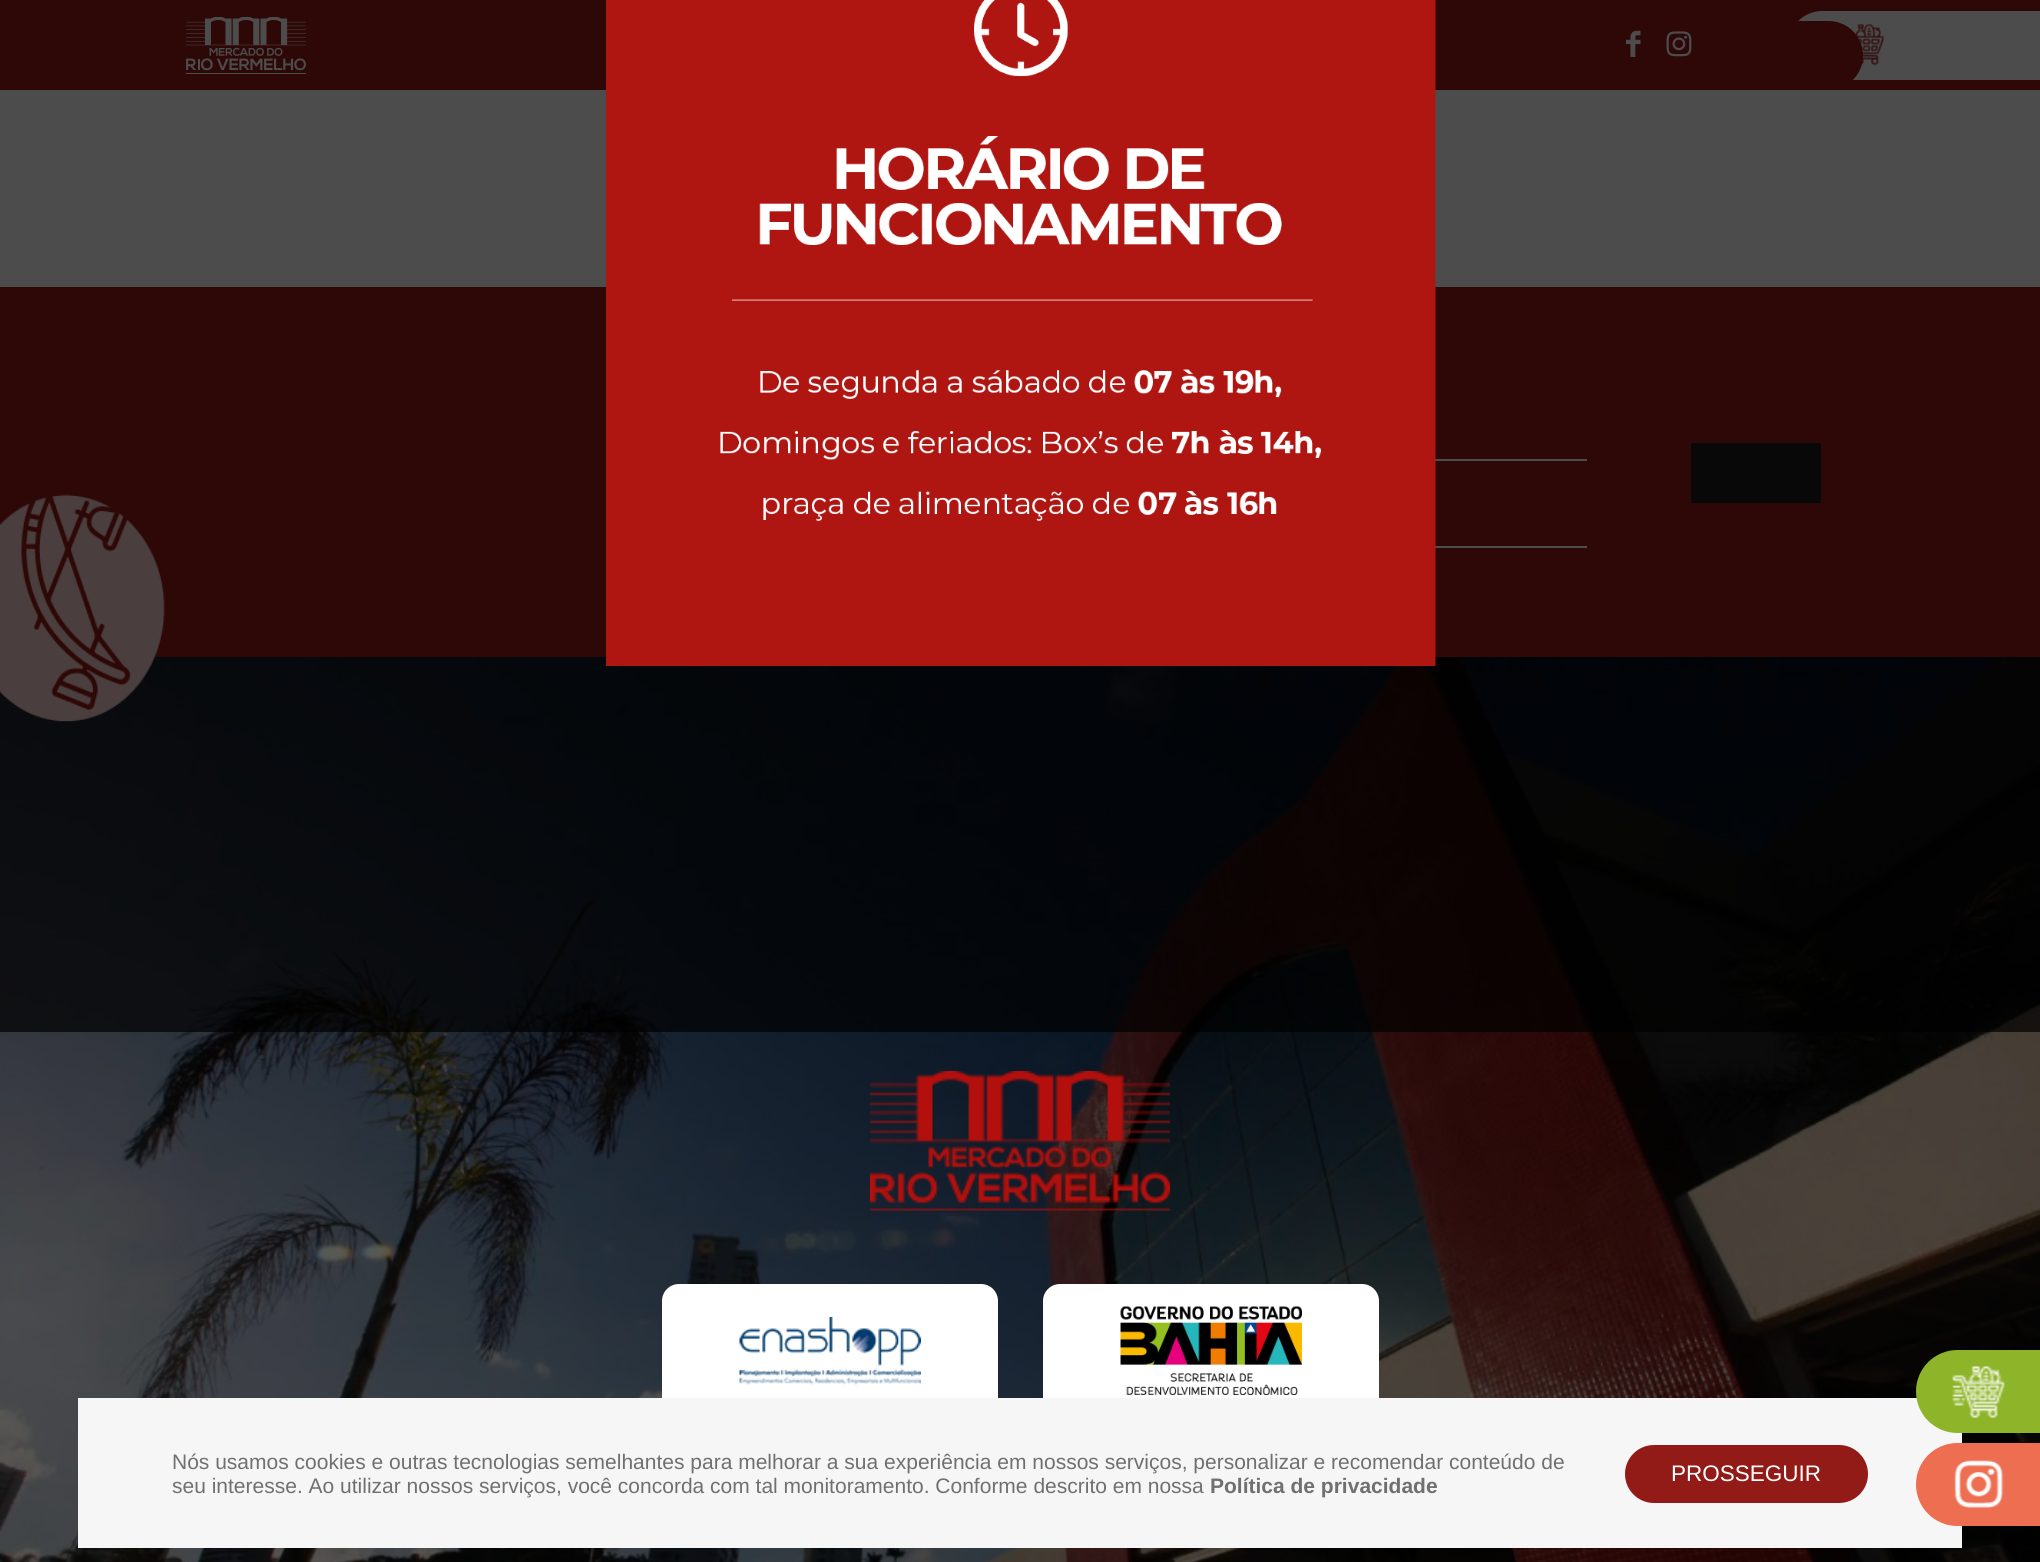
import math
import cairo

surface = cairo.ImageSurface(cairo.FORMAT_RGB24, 2040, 1562)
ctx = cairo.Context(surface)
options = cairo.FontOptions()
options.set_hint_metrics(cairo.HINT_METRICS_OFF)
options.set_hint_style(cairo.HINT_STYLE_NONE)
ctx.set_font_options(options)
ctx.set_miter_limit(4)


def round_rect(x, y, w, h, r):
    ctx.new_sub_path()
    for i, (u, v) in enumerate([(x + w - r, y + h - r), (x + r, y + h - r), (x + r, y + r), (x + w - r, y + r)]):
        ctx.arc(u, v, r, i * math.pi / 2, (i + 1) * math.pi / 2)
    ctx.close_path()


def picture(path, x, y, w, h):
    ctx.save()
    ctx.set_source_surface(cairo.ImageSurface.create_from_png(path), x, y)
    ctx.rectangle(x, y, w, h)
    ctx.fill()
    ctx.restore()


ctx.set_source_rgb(1, 1, 1)
ctx.paint()
ctx.set_source_rgb(0.596, 0.106, 0.09)
ctx.rectangle(0, 0, 2040, 90)
ctx.fill()
picture("img1.png", 186, 17, 120, 57)
picture("img2.png", 1626, 30, 15, 27)
picture("img3.png", 1666, 31, 26, 26)
ctx.set_source_rgb(1, 1, 1)
ctx.new_path()
ctx.move_to(1822.5, 12)
ctx.line_to(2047, 12)
ctx.line_to(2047, 79)
ctx.line_to(1822.5, 79)
ctx.curve_to(1804, 79, 1789, 64, 1789, 45.5)
ctx.curve_to(1789, 27, 1804, 12, 1822.5, 12)
ctx.close_path()
ctx.fill_preserve()
ctx.stroke()
picture("img4.png", 1855, 24, 30, 41)
ctx.set_source_rgb(0.596, 0.106, 0.09)
round_rect(1694, 21, 169, 69, 34.5)
ctx.fill()
ctx.rectangle(0, 287, 2040, 370)
ctx.fill()
picture("img7.png", 0, 657, 2040, 905)
picture("img6.png", 0, 494, 165, 228)
ctx.set_source_rgb(1, 1, 1)
ctx.rectangle(1435, 459, 152, 2)
ctx.fill()
ctx.rectangle(1435, 546, 152, 2)
ctx.fill()
ctx.set_source_rgb(0.102, 0.102, 0.102)
ctx.rectangle(1691, 443, 130, 60)
ctx.fill()
ctx.set_source_rgba(0, 0, 0, 0.7)
ctx.rectangle(0, 0, 2040, 1032)
ctx.fill()
picture("img5.png", 606, 0, 830, 666)
picture("img8.png", 870, 1071, 300, 140)
ctx.set_source_rgb(1, 1, 1)
round_rect(662, 1284, 336, 132, 17)
ctx.fill()
picture("img9.png", 739, 1317, 182, 68)
round_rect(1043, 1284, 336, 132, 17)
ctx.fill()
picture("img10.png", 1120, 1306, 182, 89)
ctx.set_source_rgb(0.961, 0.961, 0.961)
ctx.rectangle(78, 1398, 1884, 150)
ctx.fill()
ctx.set_source_rgb(0.557, 0.71, 0.161)
ctx.new_path()
ctx.move_to(1957.5, 1350)
ctx.line_to(2040, 1350)
ctx.line_to(2040, 1433)
ctx.line_to(1957.5, 1433)
ctx.curve_to(1934.5, 1433, 1916, 1414.5, 1916, 1391.5)
ctx.curve_to(1916, 1368.5, 1934.5, 1350, 1957.5, 1350)
ctx.close_path()
ctx.fill()
picture("img11.png", 1952, 1366, 53, 52)
ctx.set_source_rgb(0.929, 0.431, 0.314)
ctx.new_path()
ctx.move_to(1957.5, 1443)
ctx.line_to(2040, 1443)
ctx.line_to(2040, 1526)
ctx.line_to(1957.5, 1526)
ctx.curve_to(1934.5, 1526, 1916, 1507.5, 1916, 1484.5)
ctx.curve_to(1916, 1461.5, 1934.5, 1443, 1957.5, 1443)
ctx.close_path()
ctx.fill()
picture("img12.png", 1954, 1460, 50, 48)
ctx.select_font_face("Liberation Sans")
ctx.set_font_size(21)
ctx.set_source_rgb(0.439, 0.439, 0.439)
ctx.move_to(172, 1469)
ctx.show_text("Nós usamos cookies e outras tecnologias semelhantes para melhorar a sua experiência em nossos serviços, personalizar e recomendar conteúdo de")
ctx.move_to(172, 1493)
ctx.show_text("seu interesse. Ao utilizar nossos serviços, você concorda com tal monitoramento. Conforme descrito em nossa")
ctx.select_font_face("Liberation Sans", cairo.FONT_SLANT_NORMAL, cairo.FONT_WEIGHT_BOLD)
ctx.move_to(1210, 1493)
ctx.show_text("Política de privacidade")
ctx.set_source_rgb(0.573, 0.106, 0.09)
round_rect(1626, 1446, 241, 56, 28)
ctx.fill_preserve()
ctx.stroke()
ctx.select_font_face("Liberation Sans")
ctx.set_font_size(22.5)
ctx.set_source_rgb(1, 1, 1)
ctx.move_to(1671, 1481)
ctx.show_text("PROSSEGUIR")
surface.write_to_png("page.png")
